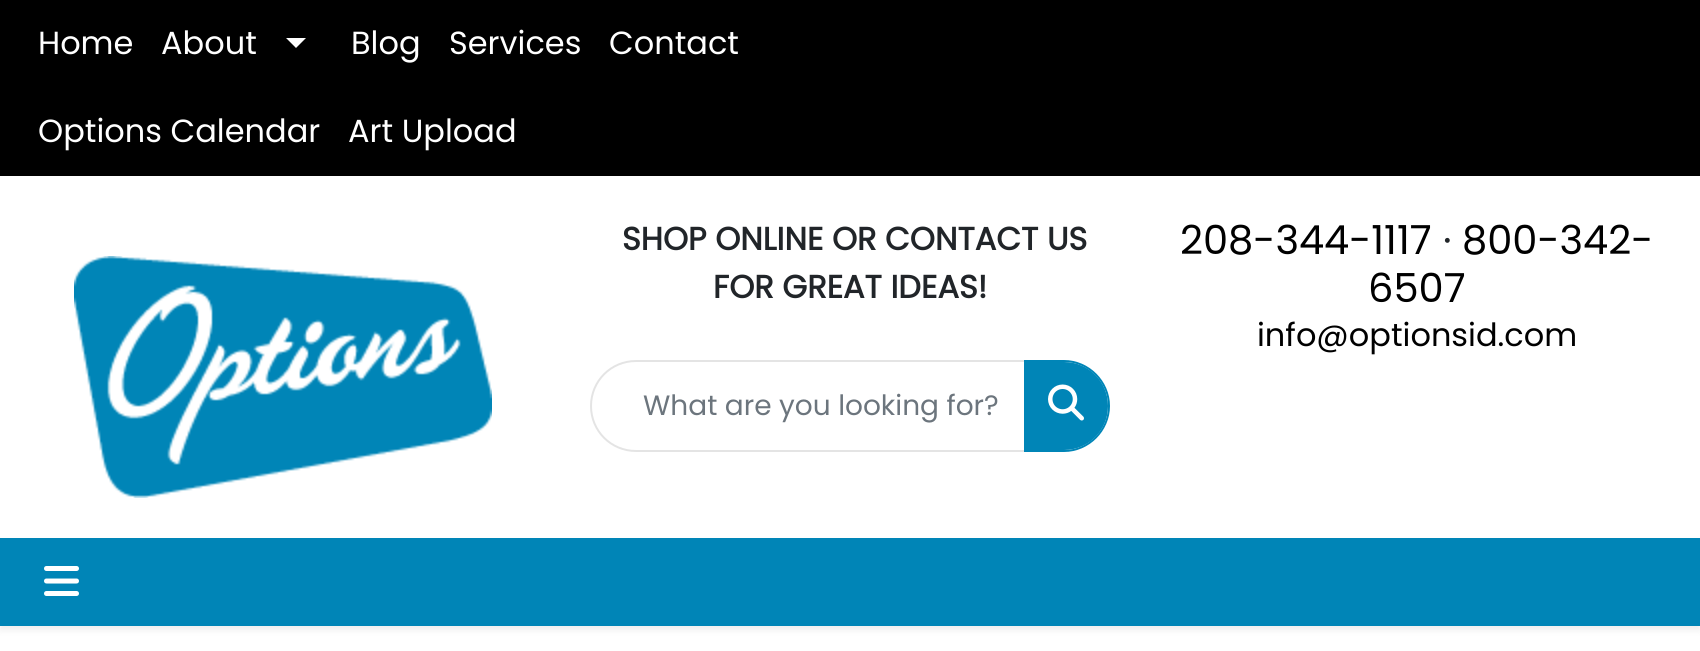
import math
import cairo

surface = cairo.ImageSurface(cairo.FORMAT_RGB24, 1700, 651)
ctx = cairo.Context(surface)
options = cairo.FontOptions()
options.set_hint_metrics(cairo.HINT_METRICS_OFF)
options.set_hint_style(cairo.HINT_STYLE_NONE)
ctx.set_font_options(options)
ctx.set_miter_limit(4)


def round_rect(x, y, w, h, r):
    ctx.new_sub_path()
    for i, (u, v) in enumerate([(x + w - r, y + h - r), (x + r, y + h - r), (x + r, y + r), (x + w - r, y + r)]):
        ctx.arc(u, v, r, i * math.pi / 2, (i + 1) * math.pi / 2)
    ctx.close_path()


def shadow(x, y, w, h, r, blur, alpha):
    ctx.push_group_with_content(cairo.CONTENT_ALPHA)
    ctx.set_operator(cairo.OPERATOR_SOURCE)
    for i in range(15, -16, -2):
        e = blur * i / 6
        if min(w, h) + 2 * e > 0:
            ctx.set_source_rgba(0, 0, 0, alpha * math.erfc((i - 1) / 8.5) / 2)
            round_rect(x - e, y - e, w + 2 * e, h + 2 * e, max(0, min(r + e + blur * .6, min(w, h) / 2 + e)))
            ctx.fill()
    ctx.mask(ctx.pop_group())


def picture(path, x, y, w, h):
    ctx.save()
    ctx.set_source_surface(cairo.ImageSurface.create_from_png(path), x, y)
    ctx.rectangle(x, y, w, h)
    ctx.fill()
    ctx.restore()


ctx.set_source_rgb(1, 1, 1)
ctx.paint()
ctx.set_source_rgb(0, 0, 0)
ctx.rectangle(0, 0, 1700, 176)
ctx.fill()
ctx.select_font_face("Poppins")
ctx.set_font_size(32)
ctx.set_source_rgb(1, 1, 1)
ctx.move_to(38, 54)
ctx.show_text("Home")
ctx.move_to(161, 54)
ctx.show_text("About")
ctx.new_path()
ctx.move_to(286, 38)
ctx.line_to(306, 38)
ctx.line_to(296, 48)
ctx.close_path()
ctx.fill()
ctx.move_to(351, 54)
ctx.show_text("Blog")
ctx.move_to(449, 54)
ctx.show_text("Services")
ctx.move_to(609, 54)
ctx.show_text("Contact")
ctx.move_to(38, 142)
ctx.show_text("Options Calendar")
ctx.move_to(348, 142)
ctx.show_text("Art Upload")
picture("img1.png", 74, 256, 418, 242)
ctx.select_font_face("Poppins", cairo.FONT_SLANT_NORMAL, cairo.FONT_WEIGHT_BOLD)
ctx.set_source_rgb(0.129, 0.145, 0.161)
ctx.move_to(622, 250)
ctx.show_text("SHOP ONLINE OR CONTACT US")
ctx.move_to(713, 298)
ctx.show_text("FOR GREAT IDEAS!")
ctx.new_path()
ctx.move_to(636, 361)
ctx.line_to(1025, 361)
ctx.line_to(1025, 451)
ctx.line_to(636, 451)
ctx.curve_to(611, 451, 591, 431, 591, 406)
ctx.curve_to(591, 381, 611, 361, 636, 361)
ctx.close_path()
ctx.set_source_rgb(0.894, 0.894, 0.894)
ctx.stroke()
ctx.select_font_face("Poppins")
ctx.set_font_size(28)
ctx.set_source_rgb(0.424, 0.459, 0.49)
ctx.move_to(643, 415)
ctx.show_text("What are you looking for?")
ctx.set_source_rgb(0, 0.522, 0.718)
ctx.new_path()
ctx.move_to(1024, 362)
ctx.line_to(1064, 362)
ctx.curve_to(1088.5, 362, 1108, 381.5, 1108, 406)
ctx.curve_to(1108, 430.5, 1088.5, 450, 1064, 450)
ctx.line_to(1024, 450)
ctx.close_path()
ctx.fill()
ctx.set_fill_rule(cairo.FILL_RULE_EVEN_ODD)
ctx.new_path()
ctx.move_to(1024, 360)
ctx.line_to(1064, 360)
ctx.curve_to(1089, 360, 1110, 381, 1110, 406)
ctx.curve_to(1110, 431, 1089, 452, 1064, 452)
ctx.line_to(1024, 452)
ctx.close_path()
ctx.move_to(1024, 362)
ctx.line_to(1064, 362)
ctx.curve_to(1088, 362, 1108, 382, 1108, 406)
ctx.curve_to(1108, 430, 1088, 450, 1064, 450)
ctx.line_to(1024, 450)
ctx.close_path()
ctx.fill()
picture("img2.png", 1048, 384, 36, 37)
ctx.set_font_size(40)
ctx.set_source_rgb(0, 0, 0)
ctx.move_to(1180, 254)
ctx.show_text("208-344-1117")
ctx.set_source_rgb(0.129, 0.145, 0.161)
ctx.move_to(1443, 254)
ctx.show_text("·")
ctx.set_source_rgb(0, 0, 0)
ctx.move_to(1462, 254)
ctx.show_text("800-342-")
ctx.move_to(1368, 302)
ctx.show_text("6507")
ctx.set_font_size(32)
ctx.move_to(1257, 346)
ctx.show_text("info@optionsid.com")
ctx.set_source_rgb(0, 0, 0)
shadow(0, 542, 1700, 88, 0, 4, 0.07)
ctx.set_source_rgb(0, 0.522, 0.718)
ctx.rectangle(0, 538, 1700, 88)
ctx.fill()
picture("img3.png", 44, 566, 35, 30)
surface.write_to_png("page.png")
